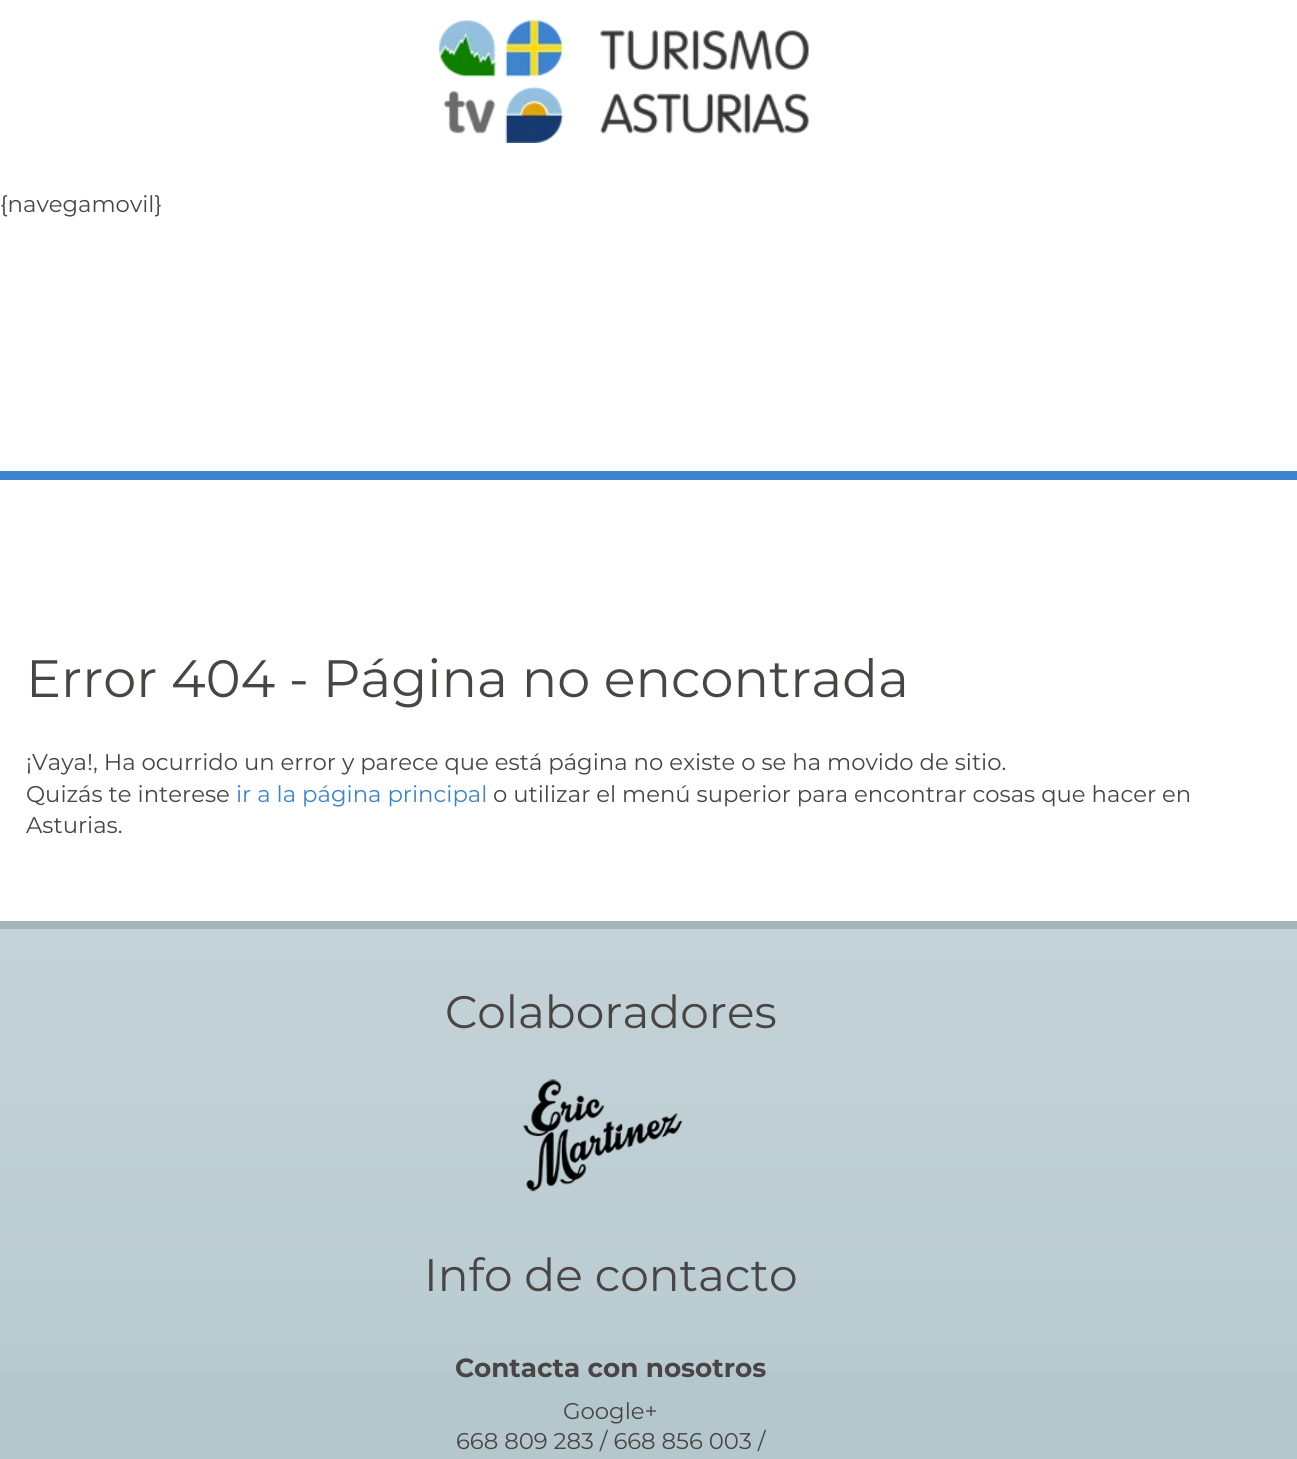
#include <cairo/cairo.h>
#include <math.h>
#include <stddef.h>

static cairo_t *cr;

static void rgb(unsigned color)
{
	cairo_set_source_rgb(cr, (color >> 16) / 255.0, (color >> 8 & 255) / 255.0, (color & 255) / 255.0);
}

static void image(const char *path, double x, double y, double w, double h)
{
	cairo_surface_t *image = cairo_image_surface_create_from_png(path);
	cairo_save(cr);
	cairo_set_source_surface(cr, image, x, y);
	cairo_rectangle(cr, x, y, w, h);
	cairo_fill(cr);
	cairo_restore(cr);
	cairo_surface_destroy(image);
}

int main(void) {
	cairo_surface_t *surface = cairo_image_surface_create(CAIRO_FORMAT_RGB24, 1297, 1459);
	cr = cairo_create(surface);
	cairo_font_options_t *options = cairo_font_options_create();
	cairo_font_options_set_hint_metrics(options, CAIRO_HINT_METRICS_OFF);
	cairo_font_options_set_hint_style(options, CAIRO_HINT_STYLE_NONE);
	cairo_set_font_options(cr, options);
	cairo_set_miter_limit(cr, 4);
	rgb(0xffffff);
	cairo_paint(cr);
	image("img/1.png", 439, 20, 370, 123);
	rgb(0x3e83ce);
	cairo_rectangle(cr, 0, 471, 1297, 9);
	cairo_fill(cr);
	rgb(0xb4c7cd);
	cairo_rectangle(cr, 0, 1370, 1297, 89);
	cairo_fill(cr);
	image("img/2.png", 0, 929, 1297, 441);
	rgb(0xa2b6bc);
	cairo_rectangle(cr, 0, 921, 1297, 8);
	cairo_fill(cr);
	image("img/3.png", 523, 1079, 160, 113);
	cairo_select_font_face(cr, "Montserrat", CAIRO_FONT_SLANT_NORMAL, CAIRO_FONT_WEIGHT_NORMAL);
	cairo_set_font_size(cr, 22.75);
	rgb(0x484544);
	cairo_move_to(cr, 0, 212);
	cairo_show_text(cr, "{navegamovil}");
	cairo_set_font_size(cr, 52.5);
	cairo_move_to(cr, 26, 697);
	cairo_show_text(cr, "Error 404 - Página no encontrada");
	cairo_set_font_size(cr, 22.75);
	cairo_move_to(cr, 26, 770);
	cairo_show_text(cr, "¡Vaya!, Ha ocurrido un error y parece que está página no existe o se ha movido de sitio.");
	cairo_move_to(cr, 26, 802);
	cairo_show_text(cr, "Quizás te interese");
	rgb(0x3e83ce);
	cairo_move_to(cr, 236, 802);
	cairo_show_text(cr, "ir a la página principal");
	rgb(0x484544);
	cairo_move_to(cr, 493, 802);
	cairo_show_text(cr, "o utilizar el menú superior para encontrar cosas que hacer en");
	cairo_move_to(cr, 26, 833);
	cairo_show_text(cr, "Asturias.");
	cairo_set_font_size(cr, 45.5);
	cairo_move_to(cr, 445, 1028);
	cairo_show_text(cr, "Colaboradores");
	cairo_move_to(cr, 424, 1291);
	cairo_show_text(cr, "Info de contacto");
	cairo_select_font_face(cr, "Montserrat", CAIRO_FONT_SLANT_NORMAL, CAIRO_FONT_WEIGHT_BOLD);
	cairo_set_font_size(cr, 26.25);
	cairo_move_to(cr, 455, 1377);
	cairo_show_text(cr, "Contacta con nosotros");
	cairo_select_font_face(cr, "Montserrat", CAIRO_FONT_SLANT_NORMAL, CAIRO_FONT_WEIGHT_NORMAL);
	cairo_set_font_size(cr, 22.75);
	cairo_move_to(cr, 563, 1419);
	cairo_show_text(cr, "Google+");
	cairo_move_to(cr, 456, 1449);
	cairo_show_text(cr, "668 809 283 / 668 856 003 /");
	cairo_surface_write_to_png(surface, "page.png");
	cairo_font_options_destroy(options);
	cairo_destroy(cr);
	cairo_surface_destroy(surface);
	return 0;
}
